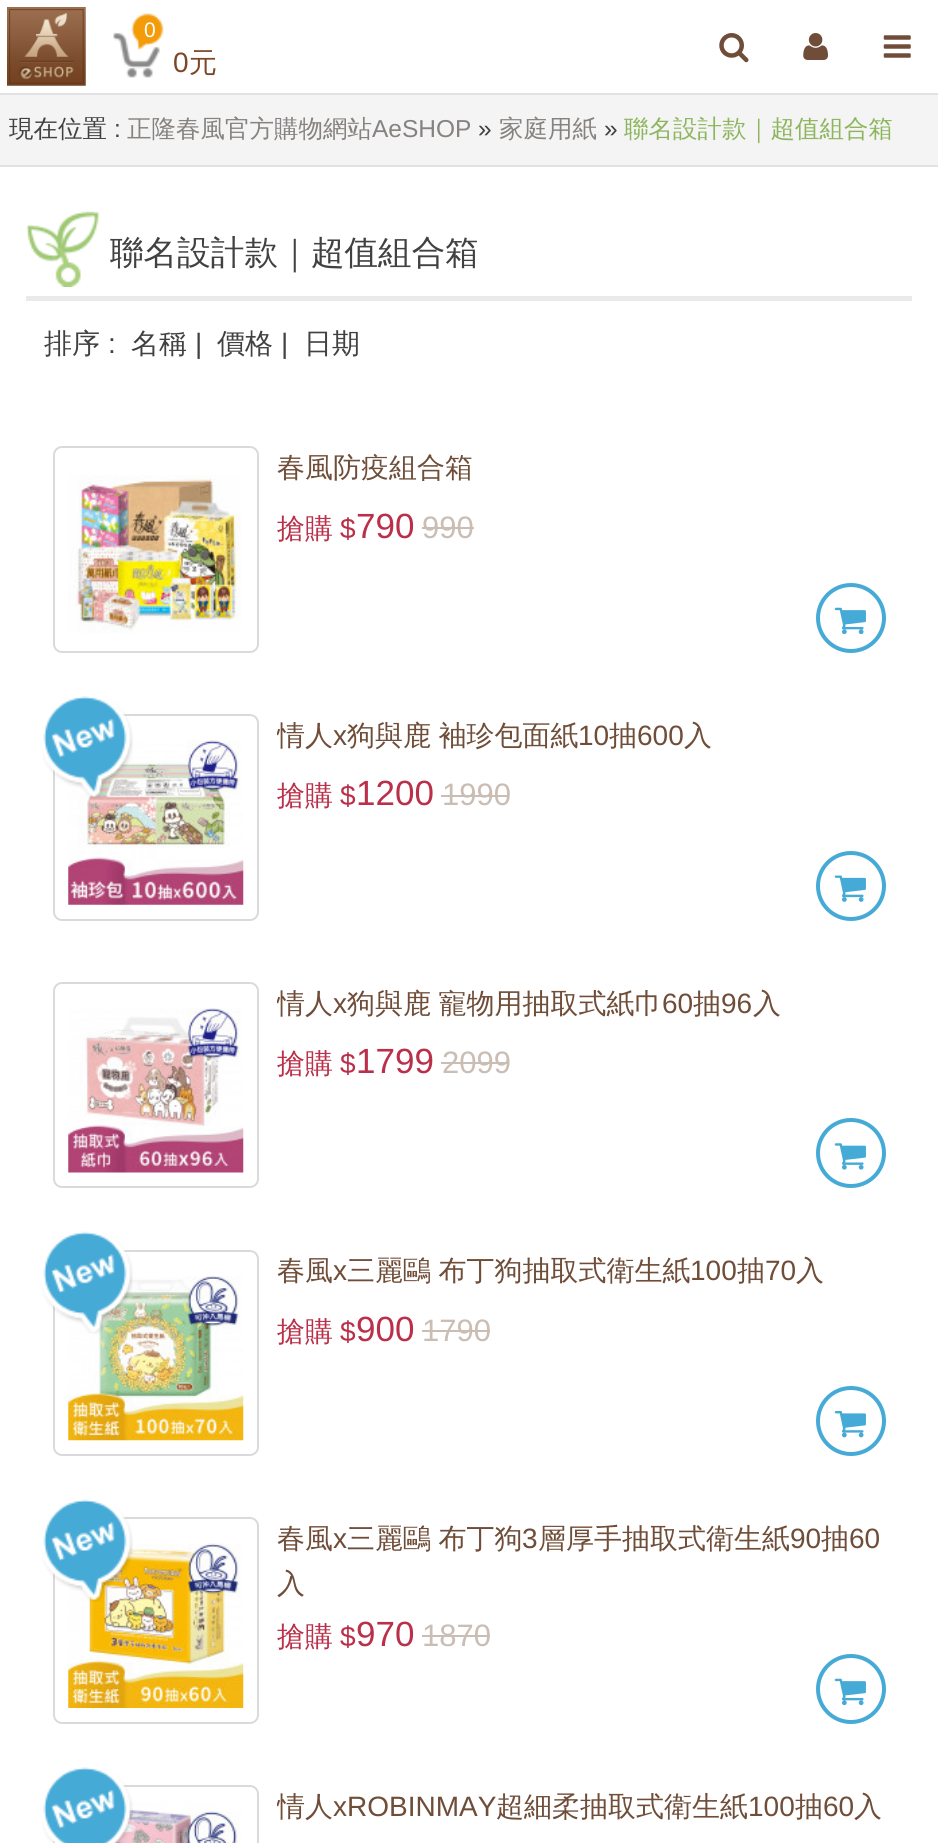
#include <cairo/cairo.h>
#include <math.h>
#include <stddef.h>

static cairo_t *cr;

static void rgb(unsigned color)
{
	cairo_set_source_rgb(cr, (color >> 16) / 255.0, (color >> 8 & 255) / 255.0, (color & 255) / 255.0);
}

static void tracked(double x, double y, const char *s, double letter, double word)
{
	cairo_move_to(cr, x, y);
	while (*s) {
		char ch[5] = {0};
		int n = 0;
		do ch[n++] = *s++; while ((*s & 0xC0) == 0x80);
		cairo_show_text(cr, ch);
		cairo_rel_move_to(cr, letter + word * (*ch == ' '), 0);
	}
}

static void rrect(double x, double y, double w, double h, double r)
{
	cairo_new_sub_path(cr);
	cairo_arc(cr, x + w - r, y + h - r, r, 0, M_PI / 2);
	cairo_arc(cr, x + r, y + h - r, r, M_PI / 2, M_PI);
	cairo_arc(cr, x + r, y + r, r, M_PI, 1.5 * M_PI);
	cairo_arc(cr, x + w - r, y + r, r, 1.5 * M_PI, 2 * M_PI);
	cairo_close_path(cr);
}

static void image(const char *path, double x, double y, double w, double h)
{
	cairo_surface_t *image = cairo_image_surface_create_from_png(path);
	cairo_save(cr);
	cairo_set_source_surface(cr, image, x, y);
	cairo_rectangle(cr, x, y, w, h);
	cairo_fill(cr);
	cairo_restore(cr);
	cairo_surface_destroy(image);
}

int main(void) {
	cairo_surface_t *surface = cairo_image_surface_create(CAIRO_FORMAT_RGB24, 938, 1843);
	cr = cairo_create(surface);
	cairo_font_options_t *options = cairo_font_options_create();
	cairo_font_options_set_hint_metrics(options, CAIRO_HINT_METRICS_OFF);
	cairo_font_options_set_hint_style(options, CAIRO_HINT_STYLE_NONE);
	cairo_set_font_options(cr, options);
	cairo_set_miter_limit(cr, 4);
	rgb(0xffffff);
	cairo_paint(cr);
	rgb(0xe2e2e2);
	cairo_rectangle(cr, 0, 93, 938, 2);
	cairo_fill(cr);
	image("img/1.png", 7, 7, 79, 79);
	image("img/2.png", 113, 13, 51, 65);
	image("img/3.png", 719, 33, 30, 30);
	image("img/4.png", 803, 33, 25, 27);
	image("img/5.png", 883, 35, 28, 23);
	rgb(0xf4f4f4);
	cairo_rectangle(cr, 0, 95, 938, 70);
	cairo_fill(cr);
	rgb(0xe2e2e2);
	cairo_rectangle(cr, 0, 165, 938, 2);
	cairo_fill(cr);
	image("img/6.png", 26, 211, 74, 76);
	rgb(0xeaeaea);
	cairo_rectangle(cr, 26, 296, 886, 5);
	cairo_fill(cr);
	rrect(54, 447, 204, 205, 8);
	rgb(0xdadada);
	cairo_stroke(cr);
	image("img/7.png", 68, 475, 173, 158);
	rgb(0xcabdb4);
	cairo_rectangle(cr, 422, 527, 52, 2);
	cairo_fill(cr);
	cairo_arc(cr, 851, 618, 33, 0, 2 * M_PI);
	rgb(0x46aad7);
	cairo_set_line_width(cr, 4);
	cairo_stroke(cr);
	image("img/8.png", 834, 607, 32, 28);
	rrect(54, 715, 204, 205, 8);
	rgb(0xdadada);
	cairo_set_line_width(cr, 2);
	cairo_stroke(cr);
	image("img/10.png", 68, 740, 176, 165);
	image("img/9.png", 42, 696, 91, 103);
	rgb(0xcabdb4);
	cairo_rectangle(cr, 441, 795, 68, 2);
	cairo_fill(cr);
	cairo_arc(cr, 851, 886, 33, 0, 2 * M_PI);
	rgb(0x46aad7);
	cairo_set_line_width(cr, 4);
	cairo_stroke(cr);
	image("img/11.png", 834, 875, 32, 27);
	rrect(54, 983, 204, 204, 8);
	rgb(0xdadada);
	cairo_set_line_width(cr, 2);
	cairo_stroke(cr);
	image("img/12.png", 68, 1008, 176, 165);
	rgb(0xcabdb4);
	cairo_rectangle(cr, 441, 1062, 68, 2);
	cairo_fill(cr);
	cairo_arc(cr, 851, 1153, 33, 0, 2 * M_PI);
	rgb(0x46aad7);
	cairo_set_line_width(cr, 4);
	cairo_stroke(cr);
	image("img/13.png", 834, 1143, 32, 27);
	rrect(54, 1251, 204, 204, 8);
	rgb(0xdadada);
	cairo_set_line_width(cr, 2);
	cairo_stroke(cr);
	image("img/15.png", 68, 1276, 176, 165);
	image("img/14.png", 41, 1231, 92, 103);
	rgb(0xcabdb4);
	cairo_rectangle(cr, 422, 1330, 68, 2);
	cairo_fill(cr);
	cairo_arc(cr, 851, 1421, 33, 0, 2 * M_PI);
	rgb(0x46aad7);
	cairo_set_line_width(cr, 4);
	cairo_stroke(cr);
	image("img/16.png", 834, 1411, 32, 27);
	rrect(54, 1518, 204, 205, 8);
	rgb(0xdadada);
	cairo_set_line_width(cr, 2);
	cairo_stroke(cr);
	image("img/18.png", 68, 1543, 176, 165);
	image("img/17.png", 42, 1499, 91, 103);
	rgb(0xcabdb4);
	cairo_rectangle(cr, 422, 1635, 68, 2);
	cairo_fill(cr);
	cairo_arc(cr, 851, 1689, 33, 0, 2 * M_PI);
	rgb(0x46aad7);
	cairo_set_line_width(cr, 4);
	cairo_stroke(cr);
	image("img/8.png", 834, 1678, 32, 28);
	rrect(54, 1786, 204, 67, 8);
	rgb(0xdadada);
	cairo_set_line_width(cr, 2);
	cairo_stroke(cr);
	image("img/20.png", 111, 1802, 130, 41);
	image("img/19.png", 42, 1767, 91, 76);
	cairo_select_font_face(cr, "Liberation Sans", CAIRO_FONT_SLANT_NORMAL, CAIRO_FONT_WEIGHT_NORMAL);
	cairo_set_font_size(cr, 21);
	rgb(0xffffff);
	cairo_move_to(cr, 144, 37);
	cairo_show_text(cr, "0");
	cairo_set_font_size(cr, 28);
	rgb(0x7d4727);
	cairo_move_to(cr, 173, 72);
	cairo_show_text(cr, "0");
	cairo_select_font_face(cr, "WenQuanYi Zen Hei Medium", CAIRO_FONT_SLANT_NORMAL, CAIRO_FONT_WEIGHT_NORMAL);
	cairo_move_to(cr, 189, 72);
	cairo_show_text(cr, "元");
	cairo_set_font_size(cr, 24.5);
	rgb(0x414141);
	cairo_move_to(cr, 9, 137);
	cairo_show_text(cr, "現在位置");
	cairo_select_font_face(cr, "Liberation Sans", CAIRO_FONT_SLANT_NORMAL, CAIRO_FONT_WEIGHT_NORMAL);
	cairo_move_to(cr, 114, 137);
	cairo_show_text(cr, ":");
	cairo_select_font_face(cr, "WenQuanYi Zen Hei Medium", CAIRO_FONT_SLANT_NORMAL, CAIRO_FONT_WEIGHT_NORMAL);
	rgb(0x868280);
	cairo_move_to(cr, 127, 137);
	cairo_show_text(cr, "正隆春風官方購物網站");
	cairo_select_font_face(cr, "Liberation Sans", CAIRO_FONT_SLANT_NORMAL, CAIRO_FONT_WEIGHT_NORMAL);
	cairo_move_to(cr, 372, 137);
	cairo_show_text(cr, "AeSHOP");
	rgb(0x414141);
	cairo_move_to(cr, 478, 137);
	cairo_show_text(cr, "»");
	cairo_select_font_face(cr, "WenQuanYi Zen Hei Medium", CAIRO_FONT_SLANT_NORMAL, CAIRO_FONT_WEIGHT_NORMAL);
	rgb(0x868280);
	cairo_move_to(cr, 499, 137);
	cairo_show_text(cr, "家庭用紙");
	cairo_select_font_face(cr, "Liberation Sans", CAIRO_FONT_SLANT_NORMAL, CAIRO_FONT_WEIGHT_NORMAL);
	rgb(0x414141);
	cairo_move_to(cr, 604, 137);
	cairo_show_text(cr, "»");
	cairo_select_font_face(cr, "WenQuanYi Zen Hei Medium", CAIRO_FONT_SLANT_NORMAL, CAIRO_FONT_WEIGHT_NORMAL);
	rgb(0x8db55d);
	cairo_move_to(cr, 624, 137);
	cairo_show_text(cr, "聯名設計款｜超值組合箱");
	cairo_set_font_size(cr, 33.6);
	rgb(0x414141);
	cairo_move_to(cr, 110, 264);
	cairo_show_text(cr, "聯名設計款｜超值組合箱");
	cairo_set_font_size(cr, 28);
	cairo_move_to(cr, 44, 353);
	cairo_show_text(cr, "排序");
	cairo_select_font_face(cr, "Liberation Sans", CAIRO_FONT_SLANT_NORMAL, CAIRO_FONT_WEIGHT_NORMAL);
	cairo_move_to(cr, 108, 353);
	cairo_show_text(cr, ":");
	cairo_select_font_face(cr, "WenQuanYi Zen Hei Medium", CAIRO_FONT_SLANT_NORMAL, CAIRO_FONT_WEIGHT_NORMAL);
	cairo_move_to(cr, 131, 353);
	cairo_show_text(cr, "名稱");
	cairo_select_font_face(cr, "Liberation Sans", CAIRO_FONT_SLANT_NORMAL, CAIRO_FONT_WEIGHT_NORMAL);
	cairo_move_to(cr, 195, 353);
	cairo_show_text(cr, "|");
	cairo_select_font_face(cr, "WenQuanYi Zen Hei Medium", CAIRO_FONT_SLANT_NORMAL, CAIRO_FONT_WEIGHT_NORMAL);
	cairo_move_to(cr, 217, 353);
	cairo_show_text(cr, "價格");
	cairo_select_font_face(cr, "Liberation Sans", CAIRO_FONT_SLANT_NORMAL, CAIRO_FONT_WEIGHT_NORMAL);
	cairo_move_to(cr, 281, 353);
	cairo_show_text(cr, "|");
	cairo_select_font_face(cr, "WenQuanYi Zen Hei Medium", CAIRO_FONT_SLANT_NORMAL, CAIRO_FONT_WEIGHT_NORMAL);
	cairo_move_to(cr, 304, 353);
	cairo_show_text(cr, "日期");
	rgb(0x6f4d38);
	cairo_move_to(cr, 277, 477);
	cairo_show_text(cr, "春風防疫組合箱");
	rgb(0xba2f49);
	cairo_move_to(cr, 277, 538);
	cairo_show_text(cr, "搶購");
	cairo_select_font_face(cr, "Liberation Sans", CAIRO_FONT_SLANT_NORMAL, CAIRO_FONT_WEIGHT_NORMAL);
	cairo_move_to(cr, 340, 538);
	cairo_show_text(cr, "$");
	cairo_set_font_size(cr, 35);
	cairo_move_to(cr, 356, 538);
	cairo_show_text(cr, "790");
	cairo_set_font_size(cr, 31);
	rgb(0xcabdb4);
	cairo_move_to(cr, 422, 538);
	cairo_show_text(cr, "990");
	cairo_save(cr);
	cairo_rectangle(cr, 277, 714, 609, 44);
	cairo_clip(cr);
	cairo_select_font_face(cr, "WenQuanYi Zen Hei Medium", CAIRO_FONT_SLANT_NORMAL, CAIRO_FONT_WEIGHT_NORMAL);
	cairo_set_font_size(cr, 28);
	rgb(0x6f4d38);
	cairo_move_to(cr, 277, 745);
	cairo_show_text(cr, "情人");
	cairo_restore(cr);
	cairo_set_font_size(cr, 28);
	rgb(0x6f4d38);
	cairo_move_to(cr, 333, 745);
	cairo_show_text(cr, "x");
	cairo_select_font_face(cr, "WenQuanYi Zen Hei Medium", CAIRO_FONT_SLANT_NORMAL, CAIRO_FONT_WEIGHT_NORMAL);
	tracked(347, 745, "狗與鹿 袖珍包面紙", 0, -1);
	cairo_select_font_face(cr, "Liberation Sans", CAIRO_FONT_SLANT_NORMAL, CAIRO_FONT_WEIGHT_NORMAL);
	cairo_move_to(cr, 578, 745);
	cairo_show_text(cr, "10");
	cairo_select_font_face(cr, "WenQuanYi Zen Hei Medium", CAIRO_FONT_SLANT_NORMAL, CAIRO_FONT_WEIGHT_NORMAL);
	cairo_move_to(cr, 609, 745);
	cairo_show_text(cr, "抽");
	cairo_select_font_face(cr, "Liberation Sans", CAIRO_FONT_SLANT_NORMAL, CAIRO_FONT_WEIGHT_NORMAL);
	cairo_move_to(cr, 637, 745);
	cairo_show_text(cr, "600");
	cairo_select_font_face(cr, "WenQuanYi Zen Hei Medium", CAIRO_FONT_SLANT_NORMAL, CAIRO_FONT_WEIGHT_NORMAL);
	cairo_move_to(cr, 684, 745);
	cairo_show_text(cr, "入");
	rgb(0xba2f49);
	cairo_move_to(cr, 277, 805);
	cairo_show_text(cr, "搶購");
	cairo_select_font_face(cr, "Liberation Sans", CAIRO_FONT_SLANT_NORMAL, CAIRO_FONT_WEIGHT_NORMAL);
	cairo_move_to(cr, 340, 805);
	cairo_show_text(cr, "$");
	cairo_set_font_size(cr, 35);
	cairo_move_to(cr, 356, 805);
	cairo_show_text(cr, "1200");
	cairo_set_font_size(cr, 31);
	rgb(0xcabdb4);
	cairo_move_to(cr, 442, 805);
	cairo_show_text(cr, "1990");
	cairo_save(cr);
	cairo_rectangle(cr, 277, 982, 609, 44);
	cairo_clip(cr);
	cairo_select_font_face(cr, "WenQuanYi Zen Hei Medium", CAIRO_FONT_SLANT_NORMAL, CAIRO_FONT_WEIGHT_NORMAL);
	cairo_set_font_size(cr, 28);
	rgb(0x6f4d38);
	cairo_move_to(cr, 277, 1013);
	cairo_show_text(cr, "情人");
	cairo_restore(cr);
	cairo_set_font_size(cr, 28);
	rgb(0x6f4d38);
	cairo_move_to(cr, 333, 1013);
	cairo_show_text(cr, "x");
	cairo_select_font_face(cr, "WenQuanYi Zen Hei Medium", CAIRO_FONT_SLANT_NORMAL, CAIRO_FONT_WEIGHT_NORMAL);
	tracked(347, 1013, "狗與鹿 寵物用抽取式紙巾", 0, -1);
	cairo_select_font_face(cr, "Liberation Sans", CAIRO_FONT_SLANT_NORMAL, CAIRO_FONT_WEIGHT_NORMAL);
	cairo_move_to(cr, 662, 1013);
	cairo_show_text(cr, "60");
	cairo_select_font_face(cr, "WenQuanYi Zen Hei Medium", CAIRO_FONT_SLANT_NORMAL, CAIRO_FONT_WEIGHT_NORMAL);
	cairo_move_to(cr, 693, 1013);
	cairo_show_text(cr, "抽");
	cairo_select_font_face(cr, "Liberation Sans", CAIRO_FONT_SLANT_NORMAL, CAIRO_FONT_WEIGHT_NORMAL);
	cairo_move_to(cr, 721, 1013);
	cairo_show_text(cr, "96");
	cairo_select_font_face(cr, "WenQuanYi Zen Hei Medium", CAIRO_FONT_SLANT_NORMAL, CAIRO_FONT_WEIGHT_NORMAL);
	cairo_move_to(cr, 753, 1013);
	cairo_show_text(cr, "入");
	rgb(0xba2f49);
	cairo_move_to(cr, 277, 1073);
	cairo_show_text(cr, "搶購");
	cairo_select_font_face(cr, "Liberation Sans", CAIRO_FONT_SLANT_NORMAL, CAIRO_FONT_WEIGHT_NORMAL);
	cairo_move_to(cr, 340, 1073);
	cairo_show_text(cr, "$");
	cairo_set_font_size(cr, 35);
	cairo_move_to(cr, 356, 1073);
	cairo_show_text(cr, "1799");
	cairo_set_font_size(cr, 31);
	rgb(0xcabdb4);
	cairo_move_to(cr, 442, 1073);
	cairo_show_text(cr, "2099");
	cairo_select_font_face(cr, "WenQuanYi Zen Hei Medium", CAIRO_FONT_SLANT_NORMAL, CAIRO_FONT_WEIGHT_NORMAL);
	cairo_set_font_size(cr, 28);
	rgb(0x6f4d38);
	cairo_move_to(cr, 277, 1280);
	cairo_show_text(cr, "春風");
	cairo_select_font_face(cr, "Liberation Sans", CAIRO_FONT_SLANT_NORMAL, CAIRO_FONT_WEIGHT_NORMAL);
	cairo_move_to(cr, 333, 1280);
	cairo_show_text(cr, "x");
	cairo_select_font_face(cr, "WenQuanYi Zen Hei Medium", CAIRO_FONT_SLANT_NORMAL, CAIRO_FONT_WEIGHT_NORMAL);
	tracked(347, 1280, "三麗鷗 布丁狗抽取式衛生紙", 0, -1);
	cairo_select_font_face(cr, "Liberation Sans", CAIRO_FONT_SLANT_NORMAL, CAIRO_FONT_WEIGHT_NORMAL);
	cairo_move_to(cr, 690, 1280);
	cairo_show_text(cr, "100");
	cairo_select_font_face(cr, "WenQuanYi Zen Hei Medium", CAIRO_FONT_SLANT_NORMAL, CAIRO_FONT_WEIGHT_NORMAL);
	cairo_move_to(cr, 737, 1280);
	cairo_show_text(cr, "抽");
	cairo_select_font_face(cr, "Liberation Sans", CAIRO_FONT_SLANT_NORMAL, CAIRO_FONT_WEIGHT_NORMAL);
	cairo_move_to(cr, 765, 1280);
	cairo_show_text(cr, "70");
	cairo_select_font_face(cr, "WenQuanYi Zen Hei Medium", CAIRO_FONT_SLANT_NORMAL, CAIRO_FONT_WEIGHT_NORMAL);
	cairo_move_to(cr, 796, 1280);
	cairo_show_text(cr, "入");
	rgb(0xba2f49);
	cairo_move_to(cr, 277, 1341);
	cairo_show_text(cr, "搶購");
	cairo_select_font_face(cr, "Liberation Sans", CAIRO_FONT_SLANT_NORMAL, CAIRO_FONT_WEIGHT_NORMAL);
	cairo_move_to(cr, 340, 1341);
	cairo_show_text(cr, "$");
	cairo_set_font_size(cr, 35);
	cairo_move_to(cr, 356, 1341);
	cairo_show_text(cr, "900");
	cairo_set_font_size(cr, 31);
	rgb(0xcabdb4);
	cairo_move_to(cr, 422, 1341);
	cairo_show_text(cr, "1790");
	cairo_select_font_face(cr, "WenQuanYi Zen Hei Medium", CAIRO_FONT_SLANT_NORMAL, CAIRO_FONT_WEIGHT_NORMAL);
	cairo_set_font_size(cr, 28);
	rgb(0x6f4d38);
	cairo_move_to(cr, 277, 1548);
	cairo_show_text(cr, "春風");
	cairo_select_font_face(cr, "Liberation Sans", CAIRO_FONT_SLANT_NORMAL, CAIRO_FONT_WEIGHT_NORMAL);
	cairo_move_to(cr, 333, 1548);
	cairo_show_text(cr, "x");
	cairo_select_font_face(cr, "WenQuanYi Zen Hei Medium", CAIRO_FONT_SLANT_NORMAL, CAIRO_FONT_WEIGHT_NORMAL);
	tracked(347, 1548, "三麗鷗 布丁狗", 0, -1);
	cairo_select_font_face(cr, "Liberation Sans", CAIRO_FONT_SLANT_NORMAL, CAIRO_FONT_WEIGHT_NORMAL);
	cairo_move_to(cr, 522, 1548);
	cairo_show_text(cr, "3");
	cairo_select_font_face(cr, "WenQuanYi Zen Hei Medium", CAIRO_FONT_SLANT_NORMAL, CAIRO_FONT_WEIGHT_NORMAL);
	cairo_move_to(cr, 538, 1548);
	cairo_show_text(cr, "層厚手抽取式衛生紙");
	cairo_select_font_face(cr, "Liberation Sans", CAIRO_FONT_SLANT_NORMAL, CAIRO_FONT_WEIGHT_NORMAL);
	cairo_move_to(cr, 790, 1548);
	cairo_show_text(cr, "90");
	cairo_select_font_face(cr, "WenQuanYi Zen Hei Medium", CAIRO_FONT_SLANT_NORMAL, CAIRO_FONT_WEIGHT_NORMAL);
	cairo_move_to(cr, 821, 1548);
	cairo_show_text(cr, "抽");
	cairo_select_font_face(cr, "Liberation Sans", CAIRO_FONT_SLANT_NORMAL, CAIRO_FONT_WEIGHT_NORMAL);
	cairo_move_to(cr, 849, 1548);
	cairo_show_text(cr, "60");
	cairo_select_font_face(cr, "WenQuanYi Zen Hei Medium", CAIRO_FONT_SLANT_NORMAL, CAIRO_FONT_WEIGHT_NORMAL);
	cairo_move_to(cr, 277, 1593);
	cairo_show_text(cr, "入");
	rgb(0xba2f49);
	cairo_move_to(cr, 277, 1646);
	cairo_show_text(cr, "搶購");
	cairo_select_font_face(cr, "Liberation Sans", CAIRO_FONT_SLANT_NORMAL, CAIRO_FONT_WEIGHT_NORMAL);
	cairo_move_to(cr, 340, 1646);
	cairo_show_text(cr, "$");
	cairo_set_font_size(cr, 35);
	cairo_move_to(cr, 356, 1646);
	cairo_show_text(cr, "970");
	cairo_set_font_size(cr, 31);
	rgb(0xcabdb4);
	cairo_move_to(cr, 422, 1646);
	cairo_show_text(cr, "1870");
	cairo_save(cr);
	cairo_rectangle(cr, 277, 1785, 609, 44);
	cairo_clip(cr);
	cairo_select_font_face(cr, "WenQuanYi Zen Hei Medium", CAIRO_FONT_SLANT_NORMAL, CAIRO_FONT_WEIGHT_NORMAL);
	cairo_set_font_size(cr, 28);
	rgb(0x6f4d38);
	cairo_move_to(cr, 277, 1816);
	cairo_show_text(cr, "情人");
	cairo_restore(cr);
	cairo_set_font_size(cr, 28);
	rgb(0x6f4d38);
	cairo_move_to(cr, 333, 1816);
	cairo_show_text(cr, "xROBINMAY");
	cairo_select_font_face(cr, "WenQuanYi Zen Hei Medium", CAIRO_FONT_SLANT_NORMAL, CAIRO_FONT_WEIGHT_NORMAL);
	cairo_move_to(cr, 496, 1816);
	cairo_show_text(cr, "超細柔抽取式衛生紙");
	cairo_select_font_face(cr, "Liberation Sans", CAIRO_FONT_SLANT_NORMAL, CAIRO_FONT_WEIGHT_NORMAL);
	cairo_move_to(cr, 748, 1816);
	cairo_show_text(cr, "100");
	cairo_select_font_face(cr, "WenQuanYi Zen Hei Medium", CAIRO_FONT_SLANT_NORMAL, CAIRO_FONT_WEIGHT_NORMAL);
	cairo_move_to(cr, 795, 1816);
	cairo_show_text(cr, "抽");
	cairo_select_font_face(cr, "Liberation Sans", CAIRO_FONT_SLANT_NORMAL, CAIRO_FONT_WEIGHT_NORMAL);
	cairo_move_to(cr, 823, 1816);
	cairo_show_text(cr, "60");
	cairo_select_font_face(cr, "WenQuanYi Zen Hei Medium", CAIRO_FONT_SLANT_NORMAL, CAIRO_FONT_WEIGHT_NORMAL);
	cairo_move_to(cr, 854, 1816);
	cairo_show_text(cr, "入");
	cairo_surface_write_to_png(surface, "page.png");
	cairo_font_options_destroy(options);
	cairo_destroy(cr);
	cairo_surface_destroy(surface);
	return 0;
}
